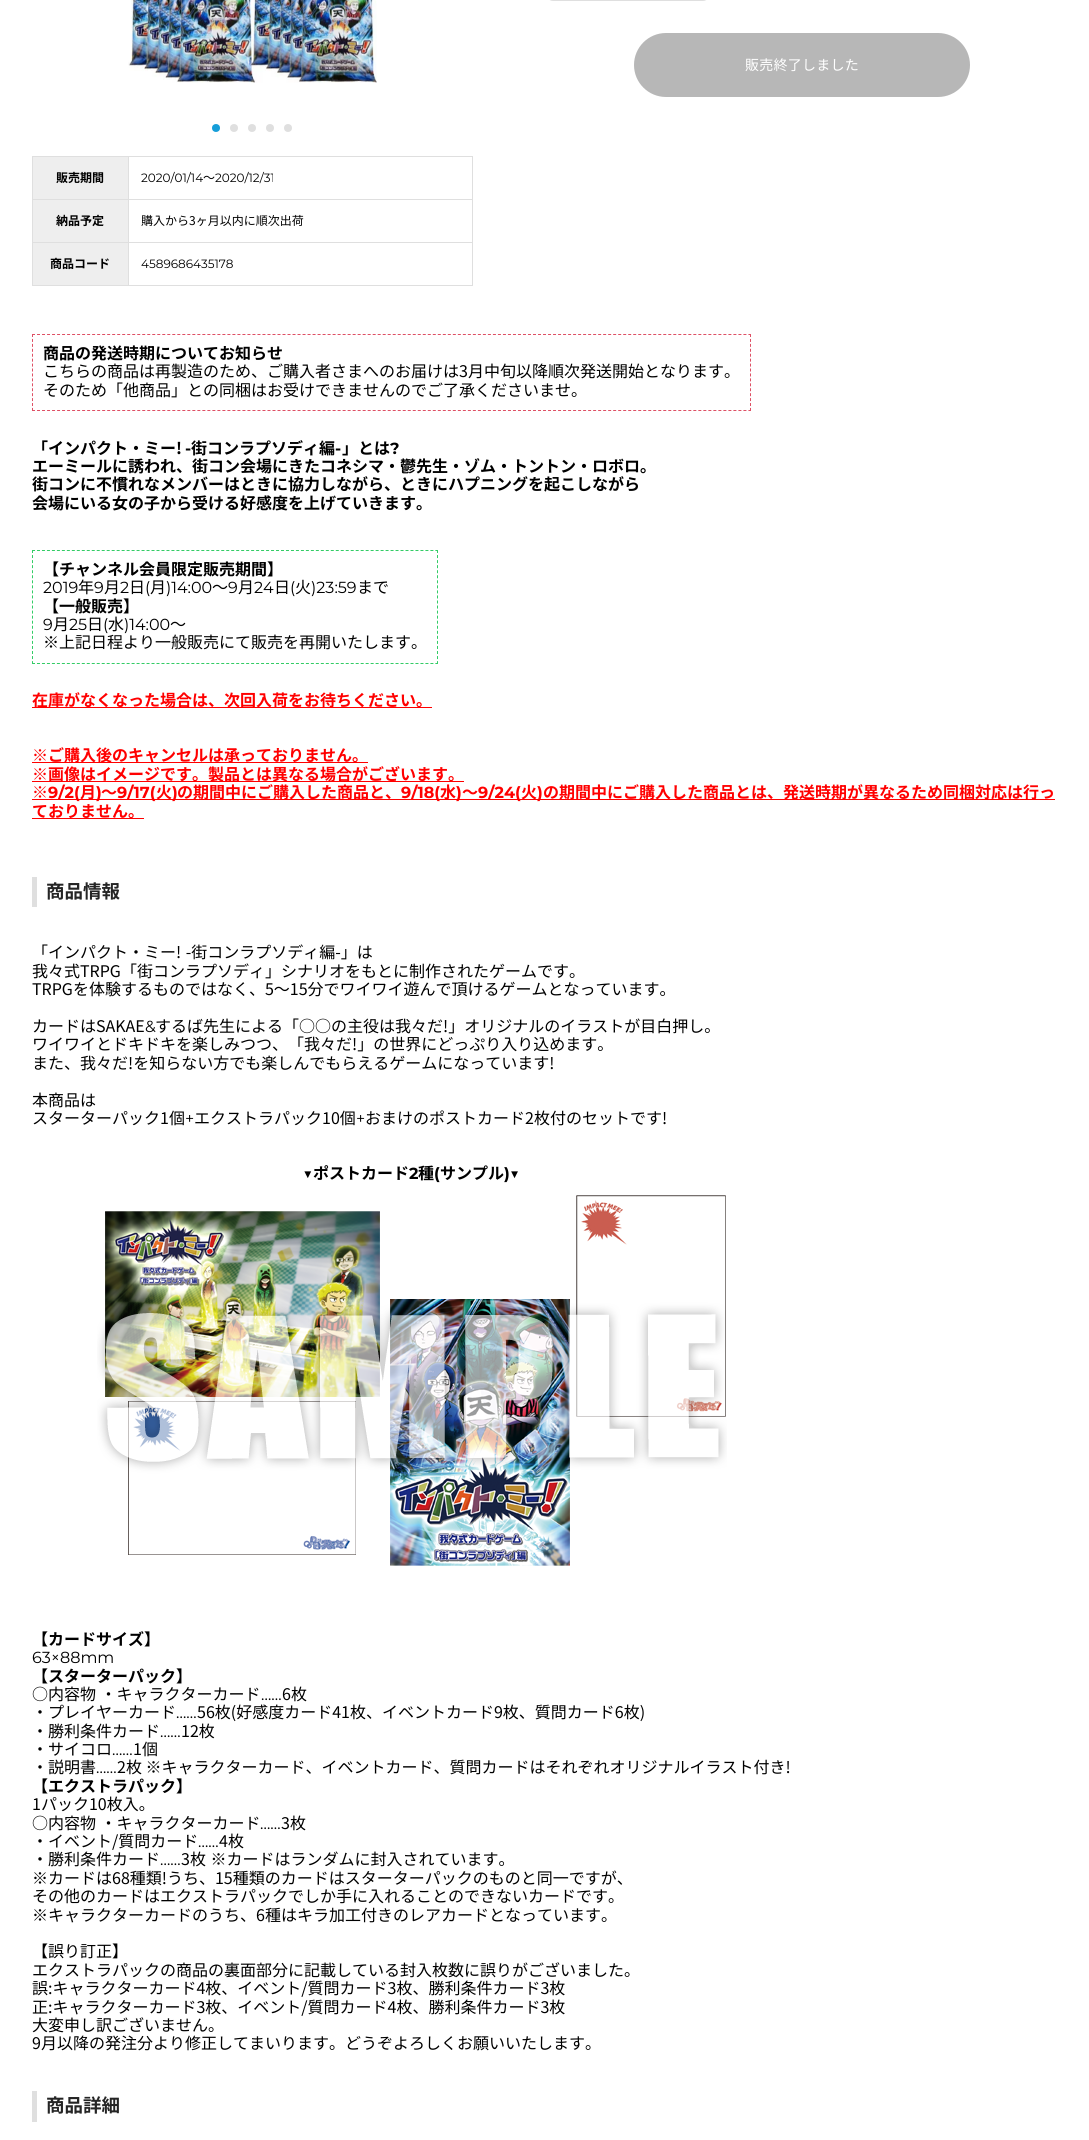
#include <cairo/cairo.h>
#include <math.h>
#include <stddef.h>

typedef struct { double x, y; const char *s; } line_t;
typedef struct { double x, y, w, h; unsigned color; } box_t;
static cairo_t *cr;

static void rgb(unsigned color)
{
	cairo_set_source_rgb(cr, (color >> 16) / 255.0, (color >> 8 & 255) / 255.0, (color & 255) / 255.0);
}

static void tracked(double x, double y, const char *s, double letter, double word)
{
	cairo_move_to(cr, x, y);
	while (*s) {
		char ch[5] = {0};
		int n = 0;
		do ch[n++] = *s++; while ((*s & 0xC0) == 0x80);
		cairo_show_text(cr, ch);
		cairo_rel_move_to(cr, letter + word * (*ch == ' '), 0);
	}
}

static void rrect(double x, double y, double w, double h, double r)
{
	cairo_new_sub_path(cr);
	cairo_arc(cr, x + w - r, y + h - r, r, 0, M_PI / 2);
	cairo_arc(cr, x + r, y + h - r, r, M_PI / 2, M_PI);
	cairo_arc(cr, x + r, y + r, r, M_PI, 1.5 * M_PI);
	cairo_arc(cr, x + w - r, y + r, r, 1.5 * M_PI, 2 * M_PI);
	cairo_close_path(cr);
}

static void image(const char *path, double x, double y, double w, double h)
{
	cairo_surface_t *image = cairo_image_surface_create_from_png(path);
	cairo_save(cr);
	cairo_set_source_surface(cr, image, x, y);
	cairo_rectangle(cr, x, y, w, h);
	cairo_fill(cr);
	cairo_restore(cr);
	cairo_surface_destroy(image);
}

int main(void) {
	cairo_surface_t *surface = cairo_image_surface_create(CAIRO_FORMAT_RGB24, 1089, 2140);
	cr = cairo_create(surface);
	cairo_font_options_t *options = cairo_font_options_create();
	cairo_font_options_set_hint_metrics(options, CAIRO_HINT_METRICS_OFF);
	cairo_font_options_set_hint_style(options, CAIRO_HINT_STYLE_NONE);
	cairo_set_font_options(cr, options);
	cairo_set_miter_limit(cr, 4);
	rgb(0xffffff);
	cairo_paint(cr);
	image("img/1.png", 128, 0, 249, 83);
	rgb(0x169ed9);
	cairo_arc(cr, 216, 128, 4, 0, 2 * M_PI);
	cairo_fill(cr);
	rgb(0xdfdfdf);
	cairo_arc(cr, 234, 128, 4, 0, 2 * M_PI);
	cairo_fill(cr);
	cairo_arc(cr, 252, 128, 4, 0, 2 * M_PI);
	cairo_fill(cr);
	cairo_arc(cr, 270, 128, 4, 0, 2 * M_PI);
	cairo_fill(cr);
	cairo_arc(cr, 288, 128, 4, 0, 2 * M_PI);
	cairo_fill(cr);
	rrect(547.5, -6.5, 161, 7, 5.5);
	cairo_set_line_width(cr, 1);
	cairo_stroke(cr);
	rgb(0xb7b7b7);
	rrect(634, 33, 336, 64, 32);
	cairo_fill(cr);
	{
		static const box_t items[] = {
			{33, 157, 95, 42, 0xeeeeee},
			{128, 156, 345, 1, 0xdfdfdf},
			{128, 199, 345, 1, 0xdfdfdf},
			{128, 242, 345, 1, 0xdfdfdf},
			{472, 242, 1, 44, 0xdfdfdf},
			{128, 285, 345, 1, 0xdfdfdf},
			{128, 242, 1, 44, 0xdfdfdf},
			{32, 242, 97, 1, 0xdfdfdf},
			{128, 199, 1, 44, 0xdfdfdf},
			{32, 199, 97, 1, 0xdfdfdf},
			{128, 156, 1, 44, 0xdfdfdf},
			{32, 156, 97, 1, 0xdfdfdf},
			{32, 285, 97, 1, 0xdfdfdf},
			{32, 242, 1, 44, 0xdfdfdf},
			{32, 199, 1, 44, 0xdfdfdf},
			{32, 156, 1, 44, 0xdfdfdf},
			{472, 199, 1, 44, 0xdfdfdf},
			{472, 156, 1, 44, 0xdfdfdf},
			{33, 200, 95, 42, 0xeeeeee},
			{33, 243, 95, 42, 0xeeeeee},
		};
		for (size_t i = 0; i < sizeof items / sizeof *items; i++) {
			rgb(items[i].color);
			cairo_rectangle(cr, items[i].x, items[i].y, items[i].w, items[i].h);
			cairo_fill(cr);
		}
	}
	cairo_new_path(cr);
	cairo_move_to(cr, 32, 334.5);
	cairo_line_to(cr, 751, 334.5);
	rgb(0xde5065);
	cairo_set_dash(cr, (double[]){3, 2.01}, 2, 0);
	cairo_stroke(cr);
	cairo_new_path(cr);
	cairo_move_to(cr, 750.5, 334);
	cairo_line_to(cr, 750.5, 411);
	cairo_set_dash(cr, (double[]){3, 1.93}, 2, 0);
	cairo_stroke(cr);
	cairo_new_path(cr);
	cairo_move_to(cr, 32, 410.5);
	cairo_line_to(cr, 751, 410.5);
	cairo_set_dash(cr, (double[]){3, 2.01}, 2, 0);
	cairo_stroke(cr);
	cairo_new_path(cr);
	cairo_move_to(cr, 32.5, 334);
	cairo_line_to(cr, 32.5, 411);
	cairo_set_dash(cr, (double[]){3, 1.93}, 2, 0);
	cairo_stroke(cr);
	cairo_new_path(cr);
	cairo_move_to(cr, 32, 550.5);
	cairo_line_to(cr, 438, 550.5);
	rgb(0x33cc66);
	cairo_set_dash(cr, (double[]){3, 1.98}, 2, 0);
	cairo_stroke(cr);
	cairo_new_path(cr);
	cairo_move_to(cr, 437.5, 550);
	cairo_line_to(cr, 437.5, 664);
	cairo_set_dash(cr, (double[]){3, 2.05}, 2, 0);
	cairo_stroke(cr);
	cairo_new_path(cr);
	cairo_move_to(cr, 32, 663.5);
	cairo_line_to(cr, 438, 663.5);
	cairo_set_dash(cr, (double[]){3, 1.98}, 2, 0);
	cairo_stroke(cr);
	cairo_new_path(cr);
	cairo_move_to(cr, 32.5, 550);
	cairo_line_to(cr, 32.5, 664);
	cairo_set_dash(cr, (double[]){3, 2.05}, 2, 0);
	cairo_stroke(cr);
	{
		static const box_t items[] = {
			{32, 707, 400, 1, 0xff0000},
			{32, 762, 336, 1, 0xff0000},
			{32, 781, 432, 1, 0xff0000},
			{32, 799, 1023, 1, 0xff0000},
			{32, 818, 112, 1, 0xff0000},
			{32, 877, 5, 30, 0xdfdfdf},
		};
		for (size_t i = 0; i < sizeof items / sizeof *items; i++) {
			rgb(items[i].color);
			cairo_rectangle(cr, items[i].x, items[i].y, items[i].w, items[i].h);
			cairo_fill(cr);
		}
	}
	image("img/2.png", 97, 1195, 630, 371);
	cairo_rectangle(cr, 32, 2091, 5, 31);
	cairo_fill(cr);
	cairo_select_font_face(cr, "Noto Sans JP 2 Thin", CAIRO_FONT_SLANT_NORMAL, CAIRO_FONT_WEIGHT_NORMAL);
	cairo_set_font_size(cr, 14);
	rgb(0xffffff);
	tracked(745, 70, "販売終了しました", 0.25, 0);
	cairo_select_font_face(cr, "Noto Sans JP Thin", CAIRO_FONT_SLANT_NORMAL, CAIRO_FONT_WEIGHT_NORMAL);
	cairo_set_font_size(cr, 12);
	rgb(0x000000);
	cairo_move_to(cr, 56, 182);
	cairo_show_text(cr, "販売期間");
	cairo_select_font_face(cr, "Montserrat", CAIRO_FONT_SLANT_NORMAL, CAIRO_FONT_WEIGHT_NORMAL);
	cairo_move_to(cr, 141, 182);
	cairo_show_text(cr, "2020/01/14");
	cairo_select_font_face(cr, "Noto Sans JP 2 Thin", CAIRO_FONT_SLANT_NORMAL, CAIRO_FONT_WEIGHT_NORMAL);
	cairo_move_to(cr, 203, 182);
	cairo_show_text(cr, "～");
	cairo_select_font_face(cr, "Montserrat", CAIRO_FONT_SLANT_NORMAL, CAIRO_FONT_WEIGHT_NORMAL);
	cairo_move_to(cr, 215, 182);
	cairo_show_text(cr, "2020/12/31");
	cairo_select_font_face(cr, "Noto Sans JP Thin", CAIRO_FONT_SLANT_NORMAL, CAIRO_FONT_WEIGHT_NORMAL);
	cairo_move_to(cr, 56, 225);
	cairo_show_text(cr, "納品予定");
	cairo_select_font_face(cr, "Noto Sans JP 2 Thin", CAIRO_FONT_SLANT_NORMAL, CAIRO_FONT_WEIGHT_NORMAL);
	cairo_move_to(cr, 141, 225);
	cairo_show_text(cr, "購入から3ヶ月以内に順次出荷");
	cairo_select_font_face(cr, "Noto Sans JP Thin", CAIRO_FONT_SLANT_NORMAL, CAIRO_FONT_WEIGHT_NORMAL);
	cairo_move_to(cr, 50, 268);
	cairo_show_text(cr, "商品コード");
	cairo_select_font_face(cr, "Montserrat", CAIRO_FONT_SLANT_NORMAL, CAIRO_FONT_WEIGHT_NORMAL);
	cairo_move_to(cr, 141, 268);
	cairo_show_text(cr, "4589686435178");
	cairo_select_font_face(cr, "Noto Sans JP Thin", CAIRO_FONT_SLANT_NORMAL, CAIRO_FONT_WEIGHT_NORMAL);
	cairo_set_font_size(cr, 16);
	cairo_move_to(cr, 43, 359);
	cairo_show_text(cr, "商品の発送時期についてお知らせ");
	cairo_select_font_face(cr, "Noto Sans JP 2 Thin", CAIRO_FONT_SLANT_NORMAL, CAIRO_FONT_WEIGHT_NORMAL);
	cairo_move_to(cr, 43, 377);
	cairo_show_text(cr, "こちらの商品は再製造のため、ご購入者さまへのお届けは3月中旬以降順次発送開始となります。");
	cairo_move_to(cr, 43, 396);
	cairo_show_text(cr, "そのため「他商品」との同梱はお受けできませんのでご了承くださいませ。");
	cairo_select_font_face(cr, "Noto Sans JP Thin", CAIRO_FONT_SLANT_NORMAL, CAIRO_FONT_WEIGHT_NORMAL);
	cairo_move_to(cr, 32, 454);
	cairo_show_text(cr, "「インパクト・ミー!");
	cairo_select_font_face(cr, "Montserrat", CAIRO_FONT_SLANT_NORMAL, CAIRO_FONT_WEIGHT_BOLD);
	cairo_move_to(cr, 185, 454);
	cairo_show_text(cr, "-");
	cairo_select_font_face(cr, "Noto Sans JP Thin", CAIRO_FONT_SLANT_NORMAL, CAIRO_FONT_WEIGHT_NORMAL);
	cairo_move_to(cr, 191, 454);
	cairo_show_text(cr, "街コンラプソディ編");
	cairo_select_font_face(cr, "Montserrat", CAIRO_FONT_SLANT_NORMAL, CAIRO_FONT_WEIGHT_BOLD);
	cairo_move_to(cr, 335, 454);
	cairo_show_text(cr, "-");
	cairo_select_font_face(cr, "Noto Sans JP Thin", CAIRO_FONT_SLANT_NORMAL, CAIRO_FONT_WEIGHT_NORMAL);
	cairo_move_to(cr, 342, 454);
	cairo_show_text(cr, "」とは");
	cairo_select_font_face(cr, "Montserrat", CAIRO_FONT_SLANT_NORMAL, CAIRO_FONT_WEIGHT_BOLD);
	cairo_move_to(cr, 390, 454);
	cairo_show_text(cr, "?");
	cairo_select_font_face(cr, "Noto Sans JP Thin", CAIRO_FONT_SLANT_NORMAL, CAIRO_FONT_WEIGHT_NORMAL);
	{
		static const line_t items[] = {
			{32, 472, "エーミールに誘われ、街コン会場にきたコネシマ・鬱先生・ゾム・トントン・ロボロ。"},
			{32, 490, "街コンに不慣れなメンバーはときに協力しながら、ときにハプニングを起こしながら"},
			{32, 509, "会場にいる女の子から受ける好感度を上げていきます。"},
			{43, 575, "【チャンネル会員限定販売期間】"},
		};
		for (size_t i = 0; i < sizeof items / sizeof *items; i++) {
			cairo_move_to(cr, items[i].x, items[i].y);
			cairo_show_text(cr, items[i].s);
		}
	}
	cairo_select_font_face(cr, "Montserrat", CAIRO_FONT_SLANT_NORMAL, CAIRO_FONT_WEIGHT_NORMAL);
	cairo_move_to(cr, 43, 593);
	cairo_show_text(cr, "2019");
	cairo_select_font_face(cr, "Noto Sans JP 2 Thin", CAIRO_FONT_SLANT_NORMAL, CAIRO_FONT_WEIGHT_NORMAL);
	cairo_move_to(cr, 78, 593);
	cairo_show_text(cr, "年");
	cairo_select_font_face(cr, "Montserrat", CAIRO_FONT_SLANT_NORMAL, CAIRO_FONT_WEIGHT_NORMAL);
	cairo_move_to(cr, 94, 593);
	cairo_show_text(cr, "9");
	cairo_select_font_face(cr, "Noto Sans JP 2 Thin", CAIRO_FONT_SLANT_NORMAL, CAIRO_FONT_WEIGHT_NORMAL);
	cairo_move_to(cr, 104, 593);
	cairo_show_text(cr, "月");
	cairo_select_font_face(cr, "Montserrat", CAIRO_FONT_SLANT_NORMAL, CAIRO_FONT_WEIGHT_NORMAL);
	cairo_move_to(cr, 120, 593);
	cairo_show_text(cr, "2");
	cairo_select_font_face(cr, "Noto Sans JP 2 Thin", CAIRO_FONT_SLANT_NORMAL, CAIRO_FONT_WEIGHT_NORMAL);
	cairo_move_to(cr, 129, 593);
	cairo_show_text(cr, "日");
	cairo_select_font_face(cr, "Montserrat", CAIRO_FONT_SLANT_NORMAL, CAIRO_FONT_WEIGHT_NORMAL);
	cairo_move_to(cr, 145, 593);
	cairo_show_text(cr, "(");
	cairo_select_font_face(cr, "Noto Sans JP 2 Thin", CAIRO_FONT_SLANT_NORMAL, CAIRO_FONT_WEIGHT_NORMAL);
	cairo_move_to(cr, 150, 593);
	cairo_show_text(cr, "月");
	cairo_select_font_face(cr, "Montserrat", CAIRO_FONT_SLANT_NORMAL, CAIRO_FONT_WEIGHT_NORMAL);
	cairo_move_to(cr, 166, 593);
	cairo_show_text(cr, ")14:00");
	cairo_select_font_face(cr, "Noto Sans JP 2 Thin", CAIRO_FONT_SLANT_NORMAL, CAIRO_FONT_WEIGHT_NORMAL);
	cairo_move_to(cr, 212, 593);
	cairo_show_text(cr, "～");
	cairo_select_font_face(cr, "Montserrat", CAIRO_FONT_SLANT_NORMAL, CAIRO_FONT_WEIGHT_NORMAL);
	cairo_move_to(cr, 228, 593);
	cairo_show_text(cr, "9");
	cairo_select_font_face(cr, "Noto Sans JP 2 Thin", CAIRO_FONT_SLANT_NORMAL, CAIRO_FONT_WEIGHT_NORMAL);
	cairo_move_to(cr, 238, 593);
	cairo_show_text(cr, "月");
	cairo_select_font_face(cr, "Montserrat", CAIRO_FONT_SLANT_NORMAL, CAIRO_FONT_WEIGHT_NORMAL);
	cairo_move_to(cr, 254, 593);
	cairo_show_text(cr, "24");
	cairo_select_font_face(cr, "Noto Sans JP 2 Thin", CAIRO_FONT_SLANT_NORMAL, CAIRO_FONT_WEIGHT_NORMAL);
	cairo_move_to(cr, 274, 593);
	cairo_show_text(cr, "日");
	cairo_select_font_face(cr, "Montserrat", CAIRO_FONT_SLANT_NORMAL, CAIRO_FONT_WEIGHT_NORMAL);
	cairo_move_to(cr, 290, 593);
	cairo_show_text(cr, "(");
	cairo_select_font_face(cr, "Noto Sans JP 2 Thin", CAIRO_FONT_SLANT_NORMAL, CAIRO_FONT_WEIGHT_NORMAL);
	cairo_move_to(cr, 295, 593);
	cairo_show_text(cr, "火");
	cairo_select_font_face(cr, "Montserrat", CAIRO_FONT_SLANT_NORMAL, CAIRO_FONT_WEIGHT_NORMAL);
	cairo_move_to(cr, 311, 593);
	cairo_show_text(cr, ")23:59");
	cairo_select_font_face(cr, "Noto Sans JP 2 Thin", CAIRO_FONT_SLANT_NORMAL, CAIRO_FONT_WEIGHT_NORMAL);
	cairo_move_to(cr, 357, 593);
	cairo_show_text(cr, "まで");
	cairo_select_font_face(cr, "Noto Sans JP Thin", CAIRO_FONT_SLANT_NORMAL, CAIRO_FONT_WEIGHT_NORMAL);
	cairo_move_to(cr, 43, 612);
	cairo_show_text(cr, "【一般販売】");
	cairo_select_font_face(cr, "Montserrat", CAIRO_FONT_SLANT_NORMAL, CAIRO_FONT_WEIGHT_NORMAL);
	cairo_move_to(cr, 43, 630);
	cairo_show_text(cr, "9");
	cairo_select_font_face(cr, "Noto Sans JP 2 Thin", CAIRO_FONT_SLANT_NORMAL, CAIRO_FONT_WEIGHT_NORMAL);
	cairo_move_to(cr, 53, 630);
	cairo_show_text(cr, "月");
	cairo_select_font_face(cr, "Montserrat", CAIRO_FONT_SLANT_NORMAL, CAIRO_FONT_WEIGHT_NORMAL);
	cairo_move_to(cr, 69, 630);
	cairo_show_text(cr, "25");
	cairo_select_font_face(cr, "Noto Sans JP 2 Thin", CAIRO_FONT_SLANT_NORMAL, CAIRO_FONT_WEIGHT_NORMAL);
	cairo_move_to(cr, 87, 630);
	cairo_show_text(cr, "日");
	cairo_select_font_face(cr, "Montserrat", CAIRO_FONT_SLANT_NORMAL, CAIRO_FONT_WEIGHT_NORMAL);
	cairo_move_to(cr, 103, 630);
	cairo_show_text(cr, "(");
	cairo_select_font_face(cr, "Noto Sans JP 2 Thin", CAIRO_FONT_SLANT_NORMAL, CAIRO_FONT_WEIGHT_NORMAL);
	cairo_move_to(cr, 108, 630);
	cairo_show_text(cr, "水");
	cairo_select_font_face(cr, "Montserrat", CAIRO_FONT_SLANT_NORMAL, CAIRO_FONT_WEIGHT_NORMAL);
	cairo_move_to(cr, 124, 630);
	cairo_show_text(cr, ")14:00");
	cairo_select_font_face(cr, "Noto Sans JP 2 Thin", CAIRO_FONT_SLANT_NORMAL, CAIRO_FONT_WEIGHT_NORMAL);
	cairo_move_to(cr, 170, 630);
	cairo_show_text(cr, "～");
	cairo_move_to(cr, 43, 648);
	cairo_show_text(cr, "※上記日程より一般販売にて販売を再開いたします。");
	cairo_select_font_face(cr, "Noto Sans JP Thin", CAIRO_FONT_SLANT_NORMAL, CAIRO_FONT_WEIGHT_NORMAL);
	rgb(0xff0000);
	{
		static const line_t items[] = {
			{32, 706, "在庫がなくなった場合は、次回入荷をお待ちください。"},
			{32, 761, "※ご購入後のキャンセルは承っておりません。"},
			{32, 780, "※画像はイメージです。製品とは異なる場合がございます。"},
			{32, 798, "※"},
		};
		for (size_t i = 0; i < sizeof items / sizeof *items; i++) {
			cairo_move_to(cr, items[i].x, items[i].y);
			cairo_show_text(cr, items[i].s);
		}
	}
	cairo_select_font_face(cr, "Montserrat", CAIRO_FONT_SLANT_NORMAL, CAIRO_FONT_WEIGHT_BOLD);
	cairo_move_to(cr, 48, 798);
	cairo_show_text(cr, "9/2(");
	cairo_select_font_face(cr, "Noto Sans JP Thin", CAIRO_FONT_SLANT_NORMAL, CAIRO_FONT_WEIGHT_NORMAL);
	cairo_move_to(cr, 80, 798);
	cairo_show_text(cr, "月");
	cairo_select_font_face(cr, "Montserrat", CAIRO_FONT_SLANT_NORMAL, CAIRO_FONT_WEIGHT_BOLD);
	cairo_move_to(cr, 96, 798);
	cairo_show_text(cr, ")");
	cairo_select_font_face(cr, "Noto Sans JP Thin", CAIRO_FONT_SLANT_NORMAL, CAIRO_FONT_WEIGHT_NORMAL);
	cairo_move_to(cr, 101, 798);
	cairo_show_text(cr, "～");
	cairo_select_font_face(cr, "Montserrat", CAIRO_FONT_SLANT_NORMAL, CAIRO_FONT_WEIGHT_BOLD);
	cairo_move_to(cr, 117, 798);
	cairo_show_text(cr, "9/17(");
	cairo_select_font_face(cr, "Noto Sans JP Thin", CAIRO_FONT_SLANT_NORMAL, CAIRO_FONT_WEIGHT_NORMAL);
	cairo_move_to(cr, 156, 798);
	cairo_show_text(cr, "火");
	cairo_select_font_face(cr, "Montserrat", CAIRO_FONT_SLANT_NORMAL, CAIRO_FONT_WEIGHT_BOLD);
	cairo_move_to(cr, 172, 798);
	cairo_show_text(cr, ")");
	cairo_select_font_face(cr, "Noto Sans JP Thin", CAIRO_FONT_SLANT_NORMAL, CAIRO_FONT_WEIGHT_NORMAL);
	cairo_move_to(cr, 177, 798);
	cairo_show_text(cr, "の期間中にご購入した商品と、");
	cairo_select_font_face(cr, "Montserrat", CAIRO_FONT_SLANT_NORMAL, CAIRO_FONT_WEIGHT_BOLD);
	cairo_move_to(cr, 401, 798);
	cairo_show_text(cr, "9/18(");
	cairo_select_font_face(cr, "Noto Sans JP Thin", CAIRO_FONT_SLANT_NORMAL, CAIRO_FONT_WEIGHT_NORMAL);
	cairo_move_to(cr, 440, 798);
	cairo_show_text(cr, "水");
	cairo_select_font_face(cr, "Montserrat", CAIRO_FONT_SLANT_NORMAL, CAIRO_FONT_WEIGHT_BOLD);
	cairo_move_to(cr, 456, 798);
	cairo_show_text(cr, ")");
	cairo_select_font_face(cr, "Noto Sans JP Thin", CAIRO_FONT_SLANT_NORMAL, CAIRO_FONT_WEIGHT_NORMAL);
	cairo_move_to(cr, 462, 798);
	cairo_show_text(cr, "～");
	cairo_select_font_face(cr, "Montserrat", CAIRO_FONT_SLANT_NORMAL, CAIRO_FONT_WEIGHT_BOLD);
	cairo_move_to(cr, 478, 798);
	cairo_show_text(cr, "9/24(");
	cairo_select_font_face(cr, "Noto Sans JP Thin", CAIRO_FONT_SLANT_NORMAL, CAIRO_FONT_WEIGHT_NORMAL);
	cairo_move_to(cr, 521, 798);
	cairo_show_text(cr, "火");
	cairo_select_font_face(cr, "Montserrat", CAIRO_FONT_SLANT_NORMAL, CAIRO_FONT_WEIGHT_BOLD);
	cairo_move_to(cr, 537, 798);
	cairo_show_text(cr, ")");
	cairo_select_font_face(cr, "Noto Sans JP Thin", CAIRO_FONT_SLANT_NORMAL, CAIRO_FONT_WEIGHT_NORMAL);
	cairo_move_to(cr, 543, 798);
	cairo_show_text(cr, "の期間中にご購入した商品とは、発送時期が異なるため同梱対応は行っ");
	cairo_move_to(cr, 32, 817);
	cairo_show_text(cr, "ておりません。");
	cairo_set_font_size(cr, 18.5);
	rgb(0x252525);
	cairo_move_to(cr, 46, 898);
	cairo_show_text(cr, "商品情報");
	cairo_select_font_face(cr, "Noto Sans JP 2 Thin", CAIRO_FONT_SLANT_NORMAL, CAIRO_FONT_WEIGHT_NORMAL);
	cairo_set_font_size(cr, 16);
	rgb(0x000000);
	tracked(32, 958, "「インパクト・ミー! -街コンラプソディ編-」は", 0, 1);
	{
		static const line_t items[] = {
			{32, 977, "我々式TRPG「街コンラプソディ」シナリオをもとに制作されたゲームです。"},
			{32, 995, "TRPGを体験するものではなく、5～15分でワイワイ遊んで頂けるゲームとなっています。"},
			{32, 1032, "カードはSAKAE"},
		};
		for (size_t i = 0; i < sizeof items / sizeof *items; i++) {
			cairo_move_to(cr, items[i].x, items[i].y);
			cairo_show_text(cr, items[i].s);
		}
	}
	cairo_select_font_face(cr, "Montserrat", CAIRO_FONT_SLANT_NORMAL, CAIRO_FONT_WEIGHT_NORMAL);
	cairo_move_to(cr, 145, 1032);
	cairo_show_text(cr, "&");
	cairo_select_font_face(cr, "Noto Sans JP 2 Thin", CAIRO_FONT_SLANT_NORMAL, CAIRO_FONT_WEIGHT_NORMAL);
	{
		static const line_t items[] = {
			{155, 1032, "するば先生による「○○の主役は我々だ!」オリジナルのイラストが目白押し。"},
			{32, 1050, "ワイワイとドキドキを楽しみつつ、「我々だ!」の世界にどっぷり入り込めます。"},
			{32, 1069, "また、我々だ!を知らない方でも楽しんでもらえるゲームになっています!"},
			{32, 1106, "本商品は"},
			{32, 1124, "スターターパック1個"},
		};
		for (size_t i = 0; i < sizeof items / sizeof *items; i++) {
			cairo_move_to(cr, items[i].x, items[i].y);
			cairo_show_text(cr, items[i].s);
		}
	}
	cairo_select_font_face(cr, "Montserrat", CAIRO_FONT_SLANT_NORMAL, CAIRO_FONT_WEIGHT_NORMAL);
	cairo_move_to(cr, 185, 1124);
	cairo_show_text(cr, "+");
	cairo_select_font_face(cr, "Noto Sans JP 2 Thin", CAIRO_FONT_SLANT_NORMAL, CAIRO_FONT_WEIGHT_NORMAL);
	cairo_move_to(cr, 194, 1124);
	cairo_show_text(cr, "エクストラパック10個");
	cairo_select_font_face(cr, "Montserrat", CAIRO_FONT_SLANT_NORMAL, CAIRO_FONT_WEIGHT_NORMAL);
	cairo_move_to(cr, 356, 1124);
	cairo_show_text(cr, "+");
	cairo_select_font_face(cr, "Noto Sans JP 2 Thin", CAIRO_FONT_SLANT_NORMAL, CAIRO_FONT_WEIGHT_NORMAL);
	cairo_move_to(cr, 365, 1124);
	cairo_show_text(cr, "おまけのポストカード2枚付のセットです!");
	cairo_select_font_face(cr, "Montserrat", CAIRO_FONT_SLANT_NORMAL, CAIRO_FONT_WEIGHT_BOLD);
	cairo_move_to(cr, 303, 1179);
	cairo_show_text(cr, "▼");
	cairo_select_font_face(cr, "Noto Sans JP Thin", CAIRO_FONT_SLANT_NORMAL, CAIRO_FONT_WEIGHT_NORMAL);
	cairo_move_to(cr, 313, 1179);
	cairo_show_text(cr, "ポストカード");
	cairo_select_font_face(cr, "Montserrat", CAIRO_FONT_SLANT_NORMAL, CAIRO_FONT_WEIGHT_BOLD);
	cairo_move_to(cr, 409, 1179);
	cairo_show_text(cr, "2");
	cairo_select_font_face(cr, "Noto Sans JP Thin", CAIRO_FONT_SLANT_NORMAL, CAIRO_FONT_WEIGHT_NORMAL);
	cairo_move_to(cr, 418, 1179);
	cairo_show_text(cr, "種");
	cairo_select_font_face(cr, "Montserrat", CAIRO_FONT_SLANT_NORMAL, CAIRO_FONT_WEIGHT_BOLD);
	cairo_move_to(cr, 434, 1179);
	cairo_show_text(cr, "(");
	cairo_select_font_face(cr, "Noto Sans JP Thin", CAIRO_FONT_SLANT_NORMAL, CAIRO_FONT_WEIGHT_NORMAL);
	cairo_move_to(cr, 440, 1179);
	cairo_show_text(cr, "サンプル");
	cairo_select_font_face(cr, "Montserrat", CAIRO_FONT_SLANT_NORMAL, CAIRO_FONT_WEIGHT_BOLD);
	cairo_move_to(cr, 504, 1179);
	cairo_show_text(cr, ")▼");
	cairo_select_font_face(cr, "Noto Sans JP Thin", CAIRO_FONT_SLANT_NORMAL, CAIRO_FONT_WEIGHT_NORMAL);
	cairo_move_to(cr, 32, 1645);
	cairo_show_text(cr, "【カードサイズ】");
	cairo_select_font_face(cr, "Montserrat", CAIRO_FONT_SLANT_NORMAL, CAIRO_FONT_WEIGHT_NORMAL);
	cairo_move_to(cr, 32, 1663);
	cairo_show_text(cr, "63×88mm");
	cairo_select_font_face(cr, "Noto Sans JP Thin", CAIRO_FONT_SLANT_NORMAL, CAIRO_FONT_WEIGHT_NORMAL);
	cairo_move_to(cr, 32, 1682);
	cairo_show_text(cr, "【スターターパック】");
	cairo_select_font_face(cr, "Noto Sans JP 2 Thin", CAIRO_FONT_SLANT_NORMAL, CAIRO_FONT_WEIGHT_NORMAL);
	tracked(32, 1700, "○内容物 ・キャラクターカード", 0, 1);
	cairo_select_font_face(cr, "Montserrat", CAIRO_FONT_SLANT_NORMAL, CAIRO_FONT_WEIGHT_NORMAL);
	cairo_move_to(cr, 261, 1700);
	cairo_show_text(cr, "……");
	cairo_select_font_face(cr, "Noto Sans JP 2 Thin", CAIRO_FONT_SLANT_NORMAL, CAIRO_FONT_WEIGHT_NORMAL);
	cairo_move_to(cr, 282, 1700);
	cairo_show_text(cr, "6枚");
	cairo_move_to(cr, 32, 1718);
	cairo_show_text(cr, "・プレイヤーカード");
	cairo_select_font_face(cr, "Montserrat", CAIRO_FONT_SLANT_NORMAL, CAIRO_FONT_WEIGHT_NORMAL);
	cairo_move_to(cr, 176, 1718);
	cairo_show_text(cr, "……");
	cairo_select_font_face(cr, "Noto Sans JP 2 Thin", CAIRO_FONT_SLANT_NORMAL, CAIRO_FONT_WEIGHT_NORMAL);
	cairo_move_to(cr, 197, 1718);
	cairo_show_text(cr, "56枚(好感度カード41枚、イベントカード9枚、質問カード6枚)");
	cairo_move_to(cr, 32, 1737);
	cairo_show_text(cr, "・勝利条件カード");
	cairo_select_font_face(cr, "Montserrat", CAIRO_FONT_SLANT_NORMAL, CAIRO_FONT_WEIGHT_NORMAL);
	cairo_move_to(cr, 160, 1737);
	cairo_show_text(cr, "……");
	cairo_select_font_face(cr, "Noto Sans JP 2 Thin", CAIRO_FONT_SLANT_NORMAL, CAIRO_FONT_WEIGHT_NORMAL);
	cairo_move_to(cr, 181, 1737);
	cairo_show_text(cr, "12枚");
	cairo_move_to(cr, 32, 1755);
	cairo_show_text(cr, "・サイコロ");
	cairo_select_font_face(cr, "Montserrat", CAIRO_FONT_SLANT_NORMAL, CAIRO_FONT_WEIGHT_NORMAL);
	cairo_move_to(cr, 112, 1755);
	cairo_show_text(cr, "……");
	cairo_select_font_face(cr, "Noto Sans JP 2 Thin", CAIRO_FONT_SLANT_NORMAL, CAIRO_FONT_WEIGHT_NORMAL);
	cairo_move_to(cr, 133, 1755);
	cairo_show_text(cr, "1個");
	cairo_move_to(cr, 32, 1773);
	cairo_show_text(cr, "・説明書");
	cairo_select_font_face(cr, "Montserrat", CAIRO_FONT_SLANT_NORMAL, CAIRO_FONT_WEIGHT_NORMAL);
	cairo_move_to(cr, 96, 1773);
	cairo_show_text(cr, "……");
	cairo_select_font_face(cr, "Noto Sans JP 2 Thin", CAIRO_FONT_SLANT_NORMAL, CAIRO_FONT_WEIGHT_NORMAL);
	cairo_move_to(cr, 117, 1773);
	cairo_show_text(cr, "2枚 ※キャラクターカード、イベントカード、質問カードはそれぞれオリジナルイラスト付き!");
	cairo_select_font_face(cr, "Noto Sans JP Thin", CAIRO_FONT_SLANT_NORMAL, CAIRO_FONT_WEIGHT_NORMAL);
	cairo_move_to(cr, 32, 1792);
	cairo_show_text(cr, "【エクストラパック】");
	cairo_select_font_face(cr, "Noto Sans JP 2 Thin", CAIRO_FONT_SLANT_NORMAL, CAIRO_FONT_WEIGHT_NORMAL);
	cairo_move_to(cr, 32, 1810);
	cairo_show_text(cr, "1パック10枚入。");
	tracked(32, 1829, "○内容物 ・キャラクターカード", 0, 1);
	cairo_select_font_face(cr, "Montserrat", CAIRO_FONT_SLANT_NORMAL, CAIRO_FONT_WEIGHT_NORMAL);
	cairo_move_to(cr, 260, 1829);
	cairo_show_text(cr, "……");
	cairo_select_font_face(cr, "Noto Sans JP 2 Thin", CAIRO_FONT_SLANT_NORMAL, CAIRO_FONT_WEIGHT_NORMAL);
	cairo_move_to(cr, 281, 1829);
	cairo_show_text(cr, "3枚");
	cairo_move_to(cr, 32, 1847);
	cairo_show_text(cr, "・イベント/質問カード");
	cairo_select_font_face(cr, "Montserrat", CAIRO_FONT_SLANT_NORMAL, CAIRO_FONT_WEIGHT_NORMAL);
	cairo_move_to(cr, 198, 1847);
	cairo_show_text(cr, "……");
	cairo_select_font_face(cr, "Noto Sans JP 2 Thin", CAIRO_FONT_SLANT_NORMAL, CAIRO_FONT_WEIGHT_NORMAL);
	cairo_move_to(cr, 219, 1847);
	cairo_show_text(cr, "4枚");
	cairo_move_to(cr, 32, 1865);
	cairo_show_text(cr, "・勝利条件カード");
	cairo_select_font_face(cr, "Montserrat", CAIRO_FONT_SLANT_NORMAL, CAIRO_FONT_WEIGHT_NORMAL);
	cairo_move_to(cr, 160, 1865);
	cairo_show_text(cr, "……");
	cairo_select_font_face(cr, "Noto Sans JP 2 Thin", CAIRO_FONT_SLANT_NORMAL, CAIRO_FONT_WEIGHT_NORMAL);
	tracked(181, 1865, "3枚 ※カードはランダムに封入されています。", 0, 1);
	{
		static const line_t items[] = {
			{32, 1884, "※カードは68種類!うち、15種類のカードはスターターパックのものと同一ですが、"},
			{32, 1902, "その他のカードはエクストラパックでしか手に入れることのできないカードです。"},
			{32, 1921, "※キャラクターカードのうち、6種はキラ加工付きのレアカードとなっています。"},
			{32, 1957, "【誤り訂正】"},
			{32, 1976, "エクストラパックの商品の裏面部分に記載している封入枚数に誤りがございました。"},
			{32, 1994, "誤:キャラクターカード4枚、イベント/質問カード3枚、勝利条件カード3枚"},
			{32, 2013, "正:キャラクターカード3枚、イベント/質問カード4枚、勝利条件カード3枚"},
			{32, 2031, "大変申し訳ございません。"},
			{32, 2049, "9月以降の発注分より修正してまいります。どうぞよろしくお願いいたします。"},
		};
		for (size_t i = 0; i < sizeof items / sizeof *items; i++) {
			cairo_move_to(cr, items[i].x, items[i].y);
			cairo_show_text(cr, items[i].s);
		}
	}
	cairo_select_font_face(cr, "Noto Sans JP Thin", CAIRO_FONT_SLANT_NORMAL, CAIRO_FONT_WEIGHT_NORMAL);
	cairo_set_font_size(cr, 18.5);
	rgb(0x252525);
	cairo_move_to(cr, 46, 2112);
	cairo_show_text(cr, "商品詳細");
	cairo_surface_write_to_png(surface, "page.png");
	cairo_font_options_destroy(options);
	cairo_destroy(cr);
	cairo_surface_destroy(surface);
	return 0;
}
